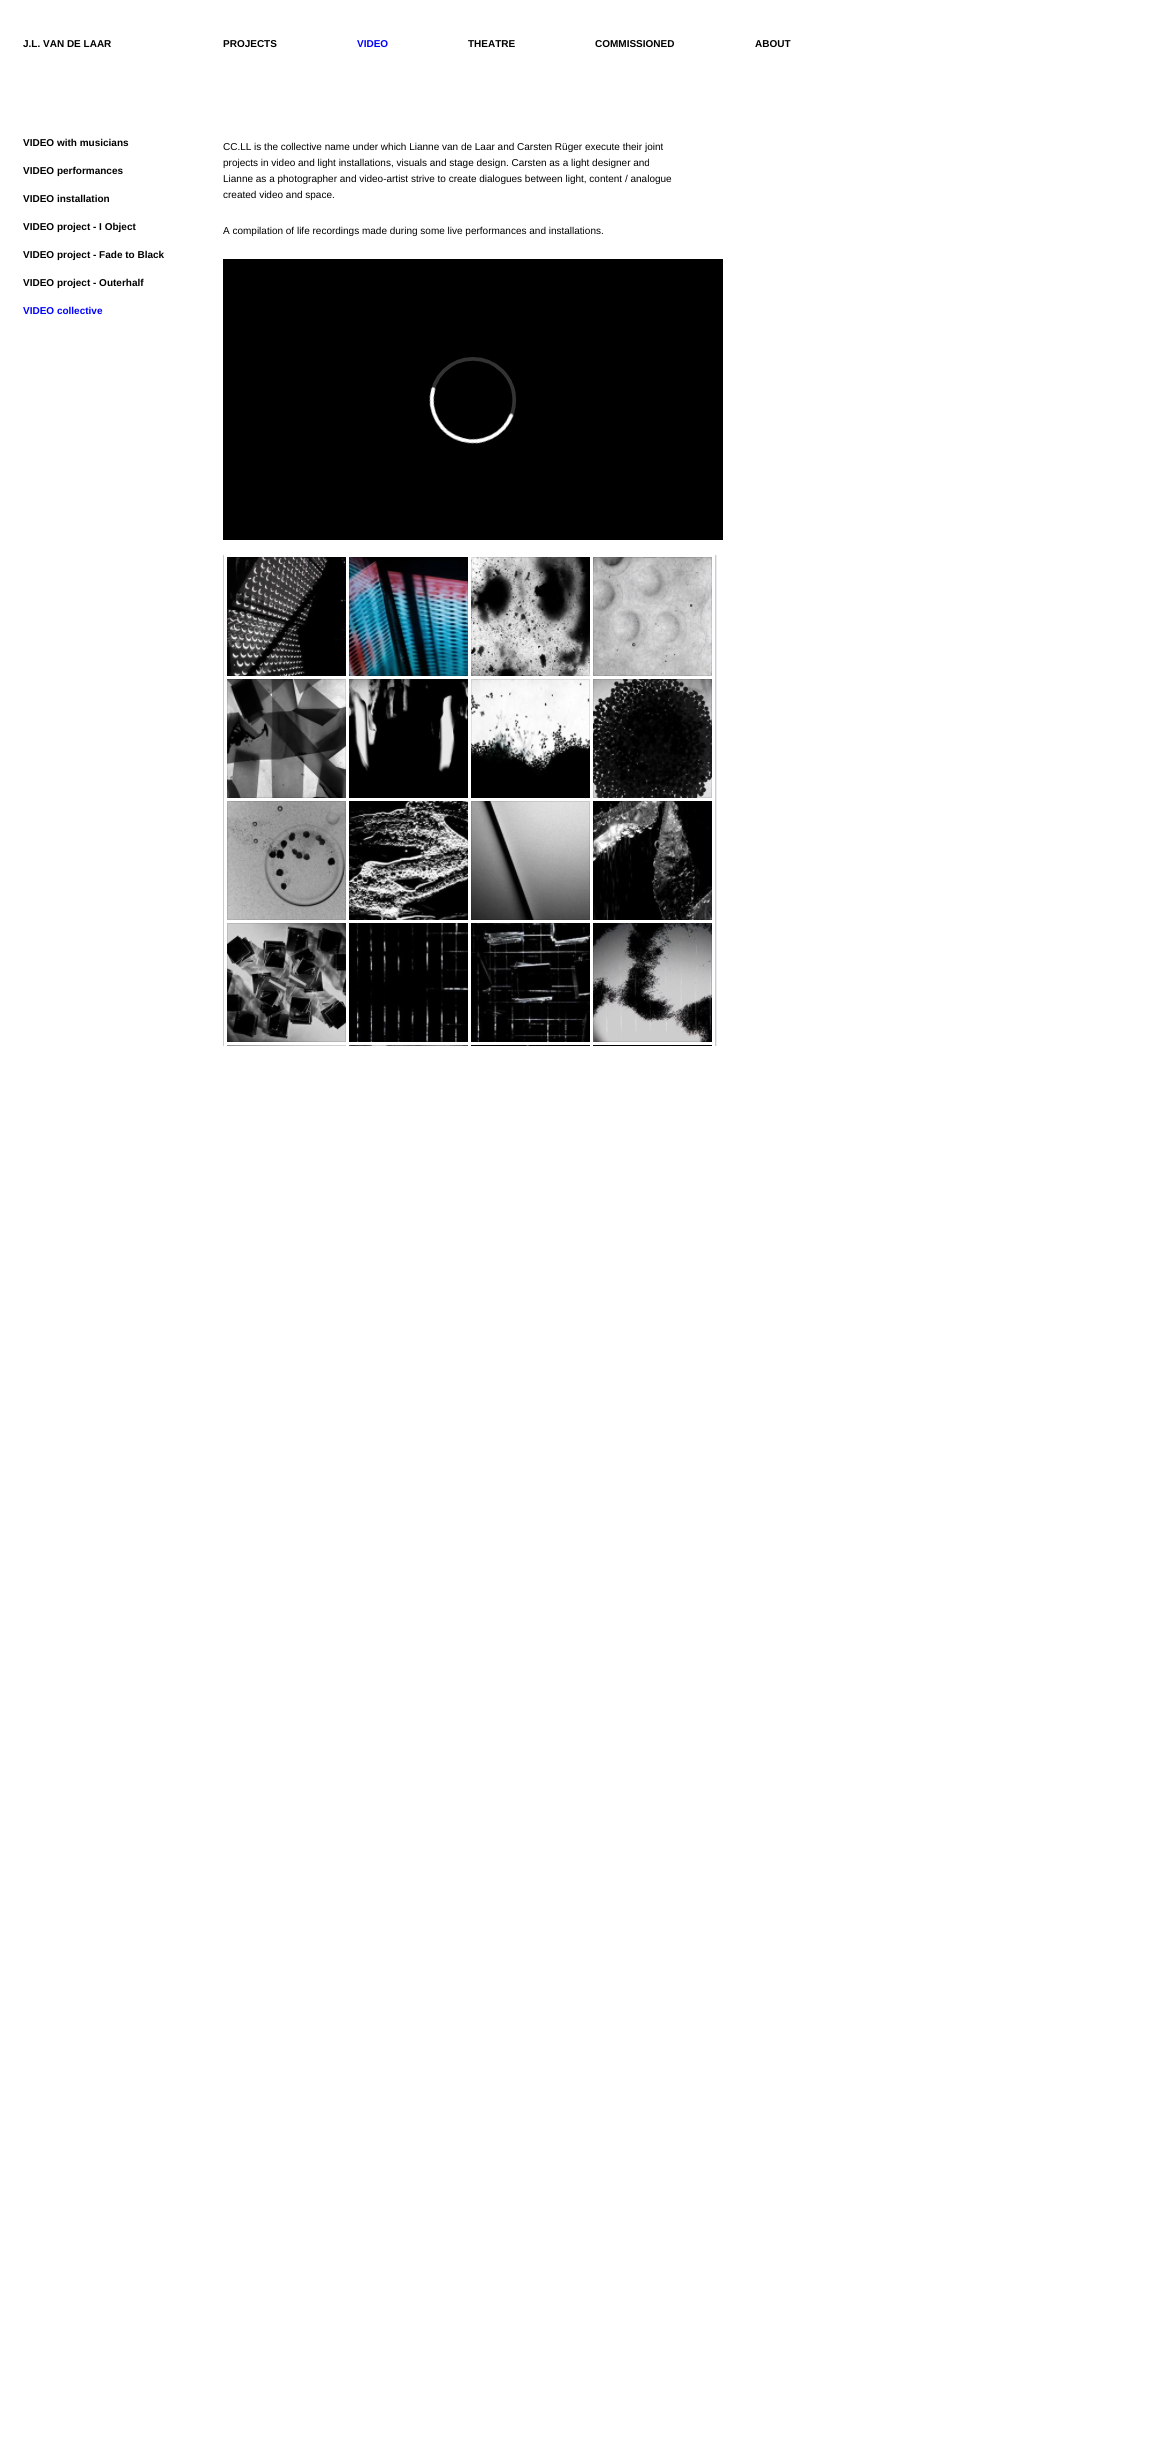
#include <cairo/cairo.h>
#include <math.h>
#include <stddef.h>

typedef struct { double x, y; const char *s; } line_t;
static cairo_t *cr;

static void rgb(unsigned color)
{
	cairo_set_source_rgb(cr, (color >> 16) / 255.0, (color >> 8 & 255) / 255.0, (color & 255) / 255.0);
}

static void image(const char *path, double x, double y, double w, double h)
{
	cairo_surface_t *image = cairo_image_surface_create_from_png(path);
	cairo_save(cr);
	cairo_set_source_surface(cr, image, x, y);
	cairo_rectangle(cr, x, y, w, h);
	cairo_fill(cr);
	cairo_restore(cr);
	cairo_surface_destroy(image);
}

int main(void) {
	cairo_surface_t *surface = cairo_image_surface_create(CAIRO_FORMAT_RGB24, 1168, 2449);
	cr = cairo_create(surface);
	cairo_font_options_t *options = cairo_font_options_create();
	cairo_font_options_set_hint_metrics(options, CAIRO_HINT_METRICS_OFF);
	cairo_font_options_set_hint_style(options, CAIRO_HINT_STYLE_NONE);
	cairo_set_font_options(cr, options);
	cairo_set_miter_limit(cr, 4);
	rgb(0xffffff);
	cairo_paint(cr);
	image("img/1.png", 223, 259, 500, 281);
	image("img/2.png", 223, 555, 494, 491);
	cairo_select_font_face(cr, "Liberation Sans", CAIRO_FONT_SLANT_NORMAL, CAIRO_FONT_WEIGHT_BOLD);
	cairo_set_font_size(cr, 10);
	rgb(0x000000);
	cairo_move_to(cr, 23, 47);
	cairo_show_text(cr, "J.L. VAN DE LAAR");
	cairo_move_to(cr, 223, 47);
	cairo_show_text(cr, "PROJECTS");
	rgb(0x0000ff);
	cairo_move_to(cr, 357, 47);
	cairo_show_text(cr, "VIDEO");
	rgb(0x000000);
	{
		static const line_t items[] = {
			{468, 47, "THEATRE"},
			{595, 47, "COMMISSIONED"},
			{755, 47, "ABOUT"},
			{23, 146, "VIDEO with musicians"},
			{23, 174, "VIDEO performances"},
			{23, 202, "VIDEO installation"},
			{23, 230, "VIDEO project - I Object"},
			{23, 258, "VIDEO project - Fade to Black"},
			{23, 286, "VIDEO project - Outerhalf"},
		};
		for (size_t i = 0; i < sizeof items / sizeof *items; i++) {
			cairo_move_to(cr, items[i].x, items[i].y);
			cairo_show_text(cr, items[i].s);
		}
	}
	rgb(0x0000ff);
	cairo_move_to(cr, 23, 314);
	cairo_show_text(cr, "VIDEO collective");
	cairo_select_font_face(cr, "Liberation Sans", CAIRO_FONT_SLANT_NORMAL, CAIRO_FONT_WEIGHT_NORMAL);
	rgb(0x000000);
	{
		static const line_t items[] = {
			{223, 150, "CC.LL is the collective name under which Lianne van de Laar and Carsten Rüger execute their joint"},
			{223, 166, "projects in video and light installations, visuals and stage design. Carsten as a light designer and"},
			{223, 182, "Lianne as a photographer and video-artist strive to create dialogues between light, content / analogue"},
			{223, 198, "created video and space."},
			{223, 234, "A compilation of life recordings made during some live performances and installations."},
		};
		for (size_t i = 0; i < sizeof items / sizeof *items; i++) {
			cairo_move_to(cr, items[i].x, items[i].y);
			cairo_show_text(cr, items[i].s);
		}
	}
	cairo_surface_write_to_png(surface, "page.png");
	cairo_font_options_destroy(options);
	cairo_destroy(cr);
	cairo_surface_destroy(surface);
	return 0;
}
